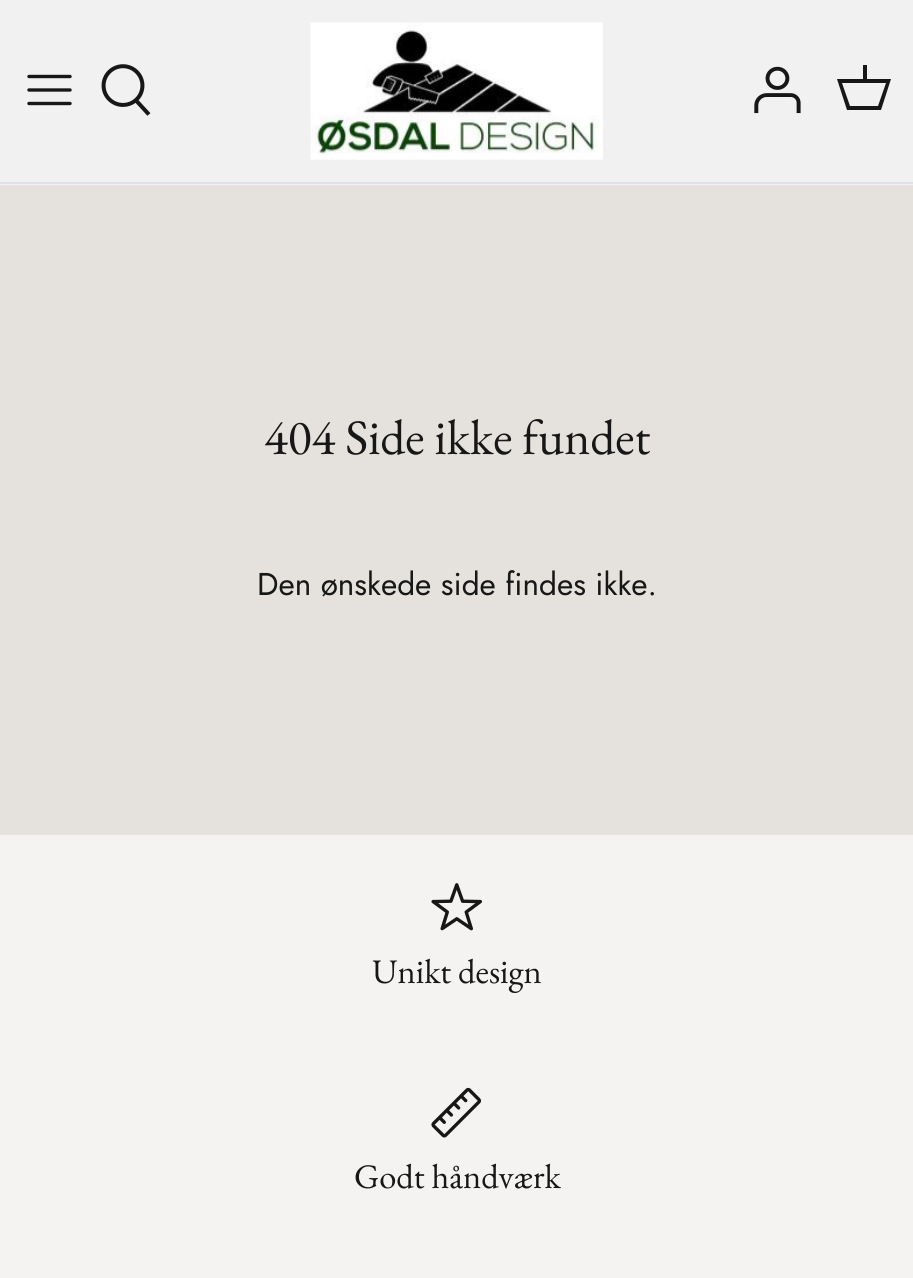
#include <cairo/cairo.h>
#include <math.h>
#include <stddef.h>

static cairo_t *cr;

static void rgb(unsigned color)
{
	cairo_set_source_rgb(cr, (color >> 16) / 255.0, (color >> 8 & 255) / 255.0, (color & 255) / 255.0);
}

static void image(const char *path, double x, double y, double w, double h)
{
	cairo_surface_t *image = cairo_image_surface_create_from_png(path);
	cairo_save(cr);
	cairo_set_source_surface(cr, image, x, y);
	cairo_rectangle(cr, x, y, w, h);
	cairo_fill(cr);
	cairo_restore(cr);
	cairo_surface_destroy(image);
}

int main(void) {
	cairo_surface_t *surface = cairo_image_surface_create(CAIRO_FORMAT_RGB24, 913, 1278);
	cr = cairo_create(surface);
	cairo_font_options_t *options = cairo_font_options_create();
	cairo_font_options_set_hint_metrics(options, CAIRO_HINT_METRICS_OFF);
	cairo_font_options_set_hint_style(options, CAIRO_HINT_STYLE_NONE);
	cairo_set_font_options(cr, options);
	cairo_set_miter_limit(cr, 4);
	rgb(0xe5e2dd);
	cairo_paint(cr);
	rgb(0xf1f1f1);
	cairo_rectangle(cr, 0, 0, 913, 185);
	cairo_fill(cr);
	rgb(0xdfe3e8);
	cairo_rectangle(cr, 0, 182, 913, 2);
	cairo_fill(cr);
	cairo_new_path(cr);
	cairo_move_to(cr, 29, 90);
	cairo_line_to(cr, 70, 90);
	cairo_move_to(cr, 29, 76.5);
	cairo_line_to(cr, 70, 76.5);
	cairo_move_to(cr, 29, 103.5);
	cairo_line_to(cr, 70, 103.5);
	rgb(0x171717);
	cairo_set_line_width(cr, 3.4);
	cairo_set_line_cap(cr, CAIRO_LINE_CAP_ROUND);
	cairo_set_line_join(cr, CAIRO_LINE_JOIN_ROUND);
	cairo_stroke(cr);
	image("img/1.png", 101, 64, 50, 52);
	image("img/2.png", 310, 22, 293, 138);
	image("img/3.png", 754, 66, 47, 48);
	cairo_new_path(cr);
	cairo_move_to(cr, 863, 79);
	cairo_line_to(cr, 863, 65);
	cairo_line_to(cr, 867, 65);
	cairo_line_to(cr, 867, 79);
	cairo_line_to(cr, 891, 79);
	cairo_line_to(cr, 881, 110);
	cairo_line_to(cr, 847, 110);
	cairo_line_to(cr, 837, 79);
	cairo_close_path(cr);
	cairo_move_to(cr, 842, 83);
	cairo_line_to(cr, 850, 106);
	cairo_line_to(cr, 878, 106);
	cairo_line_to(cr, 886, 83);
	cairo_close_path(cr);
	cairo_fill(cr);
	rgb(0xf4f3f2);
	cairo_rectangle(cr, 0, 835, 913, 443);
	cairo_fill(cr);
	image("img/4.png", 431, 883, 52, 48);
	image("img/5.png", 431, 1087, 51, 51);
	cairo_select_font_face(cr, "EB Garamond", CAIRO_FONT_SLANT_NORMAL, CAIRO_FONT_WEIGHT_NORMAL);
	cairo_set_font_size(cr, 49.5);
	rgb(0x171717);
	cairo_move_to(cr, 264, 454);
	cairo_show_text(cr, "404 Side ikke fundet");
	cairo_select_font_face(cr, "Jost", CAIRO_FONT_SLANT_NORMAL, CAIRO_FONT_WEIGHT_NORMAL);
	cairo_set_font_size(cr, 31.5);
	cairo_move_to(cr, 257, 595);
	cairo_show_text(cr, "Den ønskede side findes ikke.");
	cairo_select_font_face(cr, "EB Garamond", CAIRO_FONT_SLANT_NORMAL, CAIRO_FONT_WEIGHT_NORMAL);
	cairo_set_font_size(cr, 34.5);
	cairo_move_to(cr, 372, 983);
	cairo_show_text(cr, "Unikt design");
	cairo_move_to(cr, 354, 1188);
	cairo_show_text(cr, "Godt håndværk");
	cairo_surface_write_to_png(surface, "page.png");
	cairo_font_options_destroy(options);
	cairo_destroy(cr);
	cairo_surface_destroy(surface);
	return 0;
}
